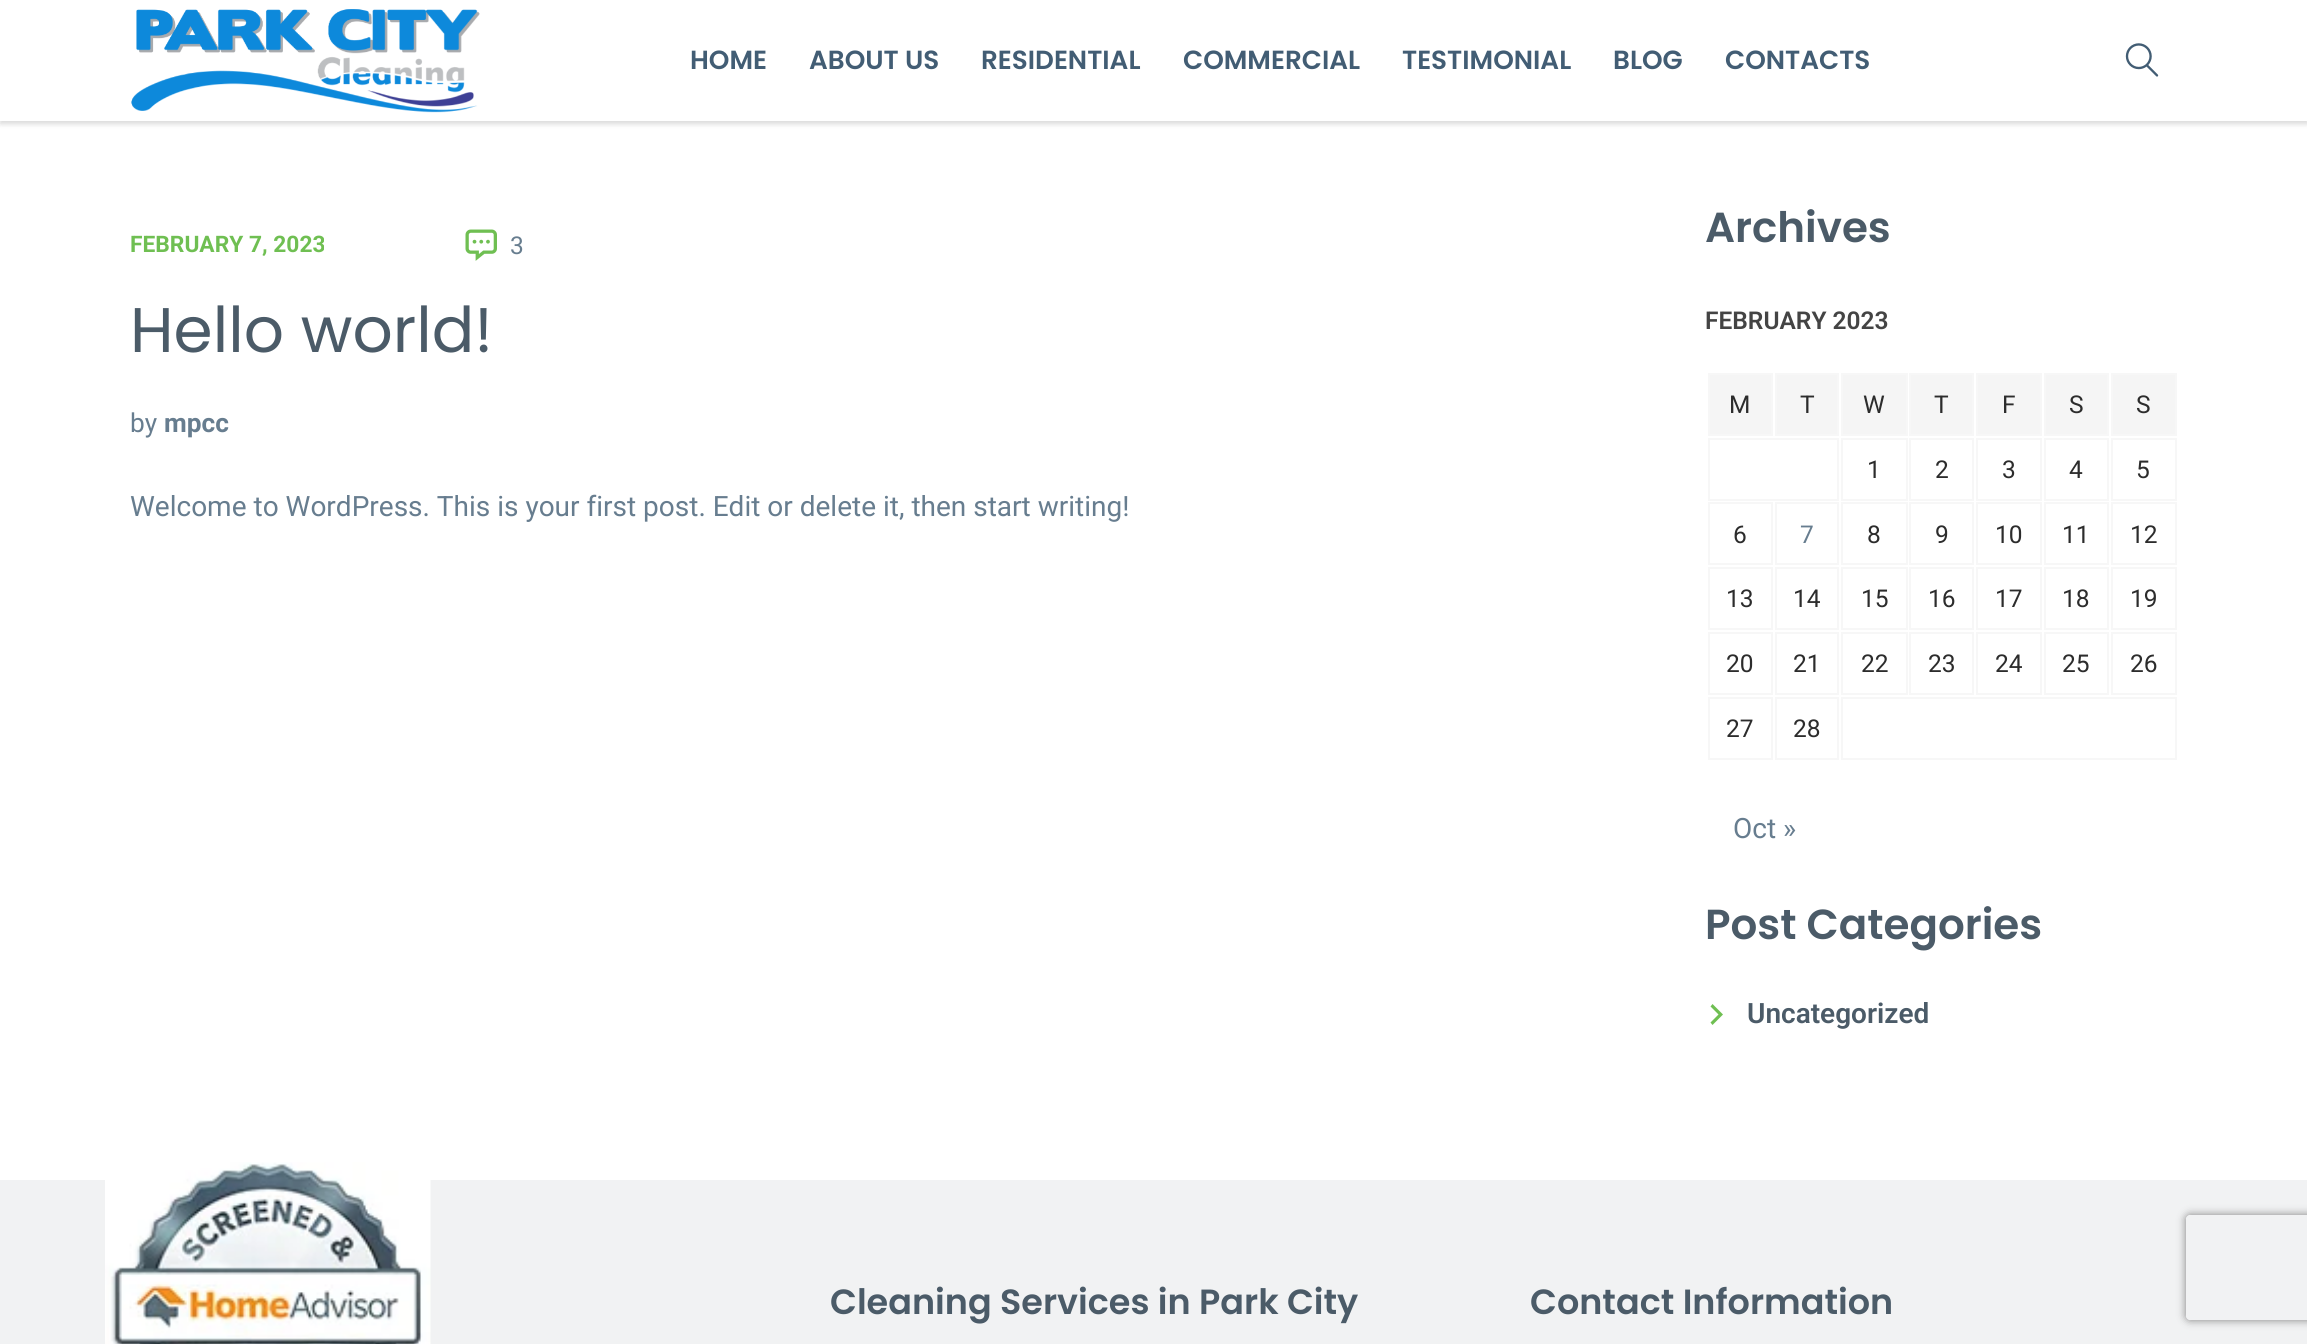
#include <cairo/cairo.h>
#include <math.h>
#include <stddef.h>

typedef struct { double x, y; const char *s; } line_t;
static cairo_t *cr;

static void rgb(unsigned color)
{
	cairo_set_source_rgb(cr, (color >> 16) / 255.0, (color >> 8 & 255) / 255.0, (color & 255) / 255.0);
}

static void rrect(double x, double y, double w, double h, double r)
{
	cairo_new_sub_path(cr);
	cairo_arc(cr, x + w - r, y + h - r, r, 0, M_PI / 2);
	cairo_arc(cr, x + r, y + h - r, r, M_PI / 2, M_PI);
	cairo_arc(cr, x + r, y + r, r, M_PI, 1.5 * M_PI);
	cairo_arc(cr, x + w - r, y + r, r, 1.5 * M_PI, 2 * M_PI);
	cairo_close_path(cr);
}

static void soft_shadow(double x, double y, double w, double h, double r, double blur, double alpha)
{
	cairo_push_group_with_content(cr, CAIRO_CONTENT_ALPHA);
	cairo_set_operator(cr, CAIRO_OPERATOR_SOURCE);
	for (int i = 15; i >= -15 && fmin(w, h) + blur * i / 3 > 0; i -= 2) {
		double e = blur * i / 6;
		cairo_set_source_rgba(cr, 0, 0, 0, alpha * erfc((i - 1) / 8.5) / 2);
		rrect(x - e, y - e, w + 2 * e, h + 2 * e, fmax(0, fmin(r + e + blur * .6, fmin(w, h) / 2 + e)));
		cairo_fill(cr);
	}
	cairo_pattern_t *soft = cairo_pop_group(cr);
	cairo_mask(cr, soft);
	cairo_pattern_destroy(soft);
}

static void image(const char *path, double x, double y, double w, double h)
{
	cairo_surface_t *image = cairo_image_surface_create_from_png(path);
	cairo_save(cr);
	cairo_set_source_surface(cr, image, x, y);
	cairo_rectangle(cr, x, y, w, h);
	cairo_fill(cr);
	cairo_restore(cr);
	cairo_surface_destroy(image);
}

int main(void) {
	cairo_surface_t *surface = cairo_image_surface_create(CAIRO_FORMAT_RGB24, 2307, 1344);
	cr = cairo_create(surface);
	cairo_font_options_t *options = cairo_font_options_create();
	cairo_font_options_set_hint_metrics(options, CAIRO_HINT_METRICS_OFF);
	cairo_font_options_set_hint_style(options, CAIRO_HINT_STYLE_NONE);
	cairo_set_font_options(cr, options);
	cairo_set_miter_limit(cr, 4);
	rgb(0xffffff);
	cairo_paint(cr);
	rgb(0x000000);
	soft_shadow(0, 4, 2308, 120, 0, 2.5, 0.15);
	rgb(0xffffff);
	cairo_rectangle(cr, 0, 0, 2307, 121);
	cairo_fill(cr);
	image("img/1.png", 131, 9, 349, 104);
	image("img/2.png", 2125, 43, 34, 34);
	image("img/3.png", 465, 229, 32, 32);
	rgb(0xf5f5f5);
	cairo_rectangle(cr, 1709, 374, 63, 61);
	cairo_fill_preserve(cr);
	rgb(0xf7f7f7);
	cairo_stroke(cr);
	rgb(0xf5f5f5);
	cairo_rectangle(cr, 1776, 374, 62, 61);
	cairo_fill_preserve(cr);
	rgb(0xf7f7f7);
	cairo_stroke(cr);
	rgb(0xf5f5f5);
	cairo_rectangle(cr, 1842, 374, 65, 61);
	cairo_fill_preserve(cr);
	rgb(0xf7f7f7);
	cairo_stroke(cr);
	rgb(0xf5f5f5);
	cairo_rectangle(cr, 1910, 374, 63, 61);
	cairo_fill_preserve(cr);
	rgb(0xf7f7f7);
	cairo_stroke(cr);
	rgb(0xf5f5f5);
	cairo_rectangle(cr, 1977, 374, 64, 61);
	cairo_fill_preserve(cr);
	rgb(0xf7f7f7);
	cairo_stroke(cr);
	rgb(0xf5f5f5);
	cairo_rectangle(cr, 2045, 374, 63, 61);
	cairo_fill_preserve(cr);
	rgb(0xf7f7f7);
	cairo_stroke(cr);
	rgb(0xf5f5f5);
	cairo_rectangle(cr, 2112, 374, 64, 61);
	cairo_fill_preserve(cr);
	rgb(0xf7f7f7);
	cairo_stroke(cr);
	cairo_rectangle(cr, 1709, 439, 129, 61);
	cairo_stroke(cr);
	cairo_rectangle(cr, 1842, 439, 65, 61);
	cairo_stroke(cr);
	cairo_rectangle(cr, 1910, 439, 63, 61);
	cairo_stroke(cr);
	cairo_rectangle(cr, 1977, 439, 64, 61);
	cairo_stroke(cr);
	cairo_rectangle(cr, 2045, 439, 63, 61);
	cairo_stroke(cr);
	cairo_rectangle(cr, 2112, 439, 64, 61);
	cairo_stroke(cr);
	cairo_rectangle(cr, 1709, 503, 63, 61);
	cairo_stroke(cr);
	cairo_rectangle(cr, 1776, 503, 62, 61);
	cairo_stroke(cr);
	cairo_rectangle(cr, 1842, 503, 65, 61);
	cairo_stroke(cr);
	cairo_rectangle(cr, 1910, 503, 63, 61);
	cairo_stroke(cr);
	cairo_rectangle(cr, 1977, 503, 64, 61);
	cairo_stroke(cr);
	cairo_rectangle(cr, 2045, 503, 63, 61);
	cairo_stroke(cr);
	cairo_rectangle(cr, 2112, 503, 64, 61);
	cairo_stroke(cr);
	cairo_rectangle(cr, 1709, 568, 63, 61);
	cairo_stroke(cr);
	cairo_rectangle(cr, 1776, 568, 62, 61);
	cairo_stroke(cr);
	cairo_rectangle(cr, 1842, 568, 65, 61);
	cairo_stroke(cr);
	cairo_rectangle(cr, 1910, 568, 63, 61);
	cairo_stroke(cr);
	cairo_rectangle(cr, 1977, 568, 64, 61);
	cairo_stroke(cr);
	cairo_rectangle(cr, 2045, 568, 63, 61);
	cairo_stroke(cr);
	cairo_rectangle(cr, 2112, 568, 64, 61);
	cairo_stroke(cr);
	cairo_rectangle(cr, 1709, 633, 63, 61);
	cairo_stroke(cr);
	cairo_rectangle(cr, 1776, 633, 62, 61);
	cairo_stroke(cr);
	cairo_rectangle(cr, 1842, 633, 65, 61);
	cairo_stroke(cr);
	cairo_rectangle(cr, 1910, 633, 63, 61);
	cairo_stroke(cr);
	cairo_rectangle(cr, 1977, 633, 64, 61);
	cairo_stroke(cr);
	cairo_rectangle(cr, 2045, 633, 63, 61);
	cairo_stroke(cr);
	cairo_rectangle(cr, 2112, 633, 64, 61);
	cairo_stroke(cr);
	cairo_rectangle(cr, 1709, 698, 63, 61);
	cairo_stroke(cr);
	cairo_rectangle(cr, 1776, 698, 62, 61);
	cairo_stroke(cr);
	cairo_rectangle(cr, 1842, 698, 334, 61);
	cairo_stroke(cr);
	rgb(0x6fbf52);
	cairo_new_path(cr);
	cairo_move_to(cr, 1712.5, 1004);
	cairo_line_to(cr, 1710.5, 1006.5);
	cairo_line_to(cr, 1718.5, 1014.5);
	cairo_line_to(cr, 1710.5, 1022.5);
	cairo_line_to(cr, 1712.5, 1025);
	cairo_line_to(cr, 1723, 1014.5);
	cairo_close_path(cr);
	cairo_fill(cr);
	rgb(0xf1f2f3);
	cairo_rectangle(cr, 0, 1180, 2307, 164);
	cairo_fill(cr);
	image("img/4.png", 105, 1162, 326, 182);
	cairo_save(cr);
	cairo_set_fill_rule(cr, CAIRO_FILL_RULE_EVEN_ODD);
	cairo_new_path(cr);
	cairo_move_to(cr, 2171, 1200);
	cairo_line_to(cr, 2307, 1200);
	cairo_line_to(cr, 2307, 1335);
	cairo_line_to(cr, 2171, 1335);
	cairo_close_path(cr);
	cairo_move_to(cr, 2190, 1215);
	cairo_line_to(cr, 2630, 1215);
	cairo_curve_to(cr, 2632, 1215, 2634, 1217, 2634, 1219);
	cairo_line_to(cr, 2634, 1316);
	cairo_curve_to(cr, 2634, 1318, 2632, 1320, 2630, 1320);
	cairo_line_to(cr, 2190, 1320);
	cairo_curve_to(cr, 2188, 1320, 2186, 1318, 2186, 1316);
	cairo_line_to(cr, 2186, 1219);
	cairo_curve_to(cr, 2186, 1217, 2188, 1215, 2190, 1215);
	cairo_close_path(cr);
	cairo_clip(cr);
	rgb(0x808080);
	soft_shadow(2186, 1215, 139, 105, 4, 4.5, 1);
	cairo_restore(cr);
	cairo_select_font_face(cr, "Poppins SemiBold", CAIRO_FONT_SLANT_NORMAL, CAIRO_FONT_WEIGHT_NORMAL);
	cairo_set_font_size(cr, 26.25);
	rgb(0x425d74);
	{
		static const line_t items[] = {
			{690, 69, "HOME"},
			{809, 69, "ABOUT US"},
			{981, 69, "RESIDENTIAL"},
			{1183, 69, "COMMERCIAL"},
			{1402, 69, "TESTIMONIAL"},
			{1613, 69, "BLOG"},
			{1725, 69, "CONTACTS"},
		};
		for (size_t i = 0; i < sizeof items / sizeof *items; i++) {
			cairo_move_to(cr, items[i].x, items[i].y);
			cairo_show_text(cr, items[i].s);
		}
	}
	cairo_select_font_face(cr, "Roboto", CAIRO_FONT_SLANT_NORMAL, CAIRO_FONT_WEIGHT_BOLD);
	cairo_set_font_size(cr, 22.75);
	rgb(0x6fbf52);
	cairo_move_to(cr, 130, 252);
	cairo_show_text(cr, "FEBRUARY 7, 2023");
	cairo_select_font_face(cr, "Roboto", CAIRO_FONT_SLANT_NORMAL, CAIRO_FONT_WEIGHT_NORMAL);
	cairo_set_font_size(cr, 24.5);
	rgb(0x677d8f);
	cairo_move_to(cr, 510, 254);
	cairo_show_text(cr, "3");
	cairo_select_font_face(cr, "Poppins", CAIRO_FONT_SLANT_NORMAL, CAIRO_FONT_WEIGHT_NORMAL);
	cairo_set_font_size(cr, 63);
	rgb(0x4b5b68);
	cairo_move_to(cr, 130, 352);
	cairo_show_text(cr, "Hello world!");
	cairo_select_font_face(cr, "Roboto", CAIRO_FONT_SLANT_NORMAL, CAIRO_FONT_WEIGHT_NORMAL);
	cairo_set_font_size(cr, 26.25);
	rgb(0x677d8f);
	cairo_move_to(cr, 130, 432);
	cairo_show_text(cr, "by");
	cairo_select_font_face(cr, "Roboto", CAIRO_FONT_SLANT_NORMAL, CAIRO_FONT_WEIGHT_BOLD);
	cairo_move_to(cr, 164, 432);
	cairo_show_text(cr, "mpcc");
	cairo_select_font_face(cr, "Roboto", CAIRO_FONT_SLANT_NORMAL, CAIRO_FONT_WEIGHT_NORMAL);
	cairo_set_font_size(cr, 28);
	cairo_move_to(cr, 130, 516);
	cairo_show_text(cr, "Welcome to WordPress. This is your first post. Edit or delete it, then start writing!");
	cairo_select_font_face(cr, "Poppins SemiBold", CAIRO_FONT_SLANT_NORMAL, CAIRO_FONT_WEIGHT_NORMAL);
	cairo_set_font_size(cr, 42);
	rgb(0x4b5b68);
	cairo_move_to(cr, 1705, 242);
	cairo_show_text(cr, "Archives");
	cairo_select_font_face(cr, "Roboto SemiBold", CAIRO_FONT_SLANT_NORMAL, CAIRO_FONT_WEIGHT_NORMAL);
	cairo_set_font_size(cr, 24.5);
	rgb(0x444444);
	cairo_move_to(cr, 1705, 329);
	cairo_show_text(cr, "FEBRUARY 2023");
	cairo_select_font_face(cr, "Roboto", CAIRO_FONT_SLANT_NORMAL, CAIRO_FONT_WEIGHT_NORMAL);
	rgb(0x2c2c2c);
	{
		static const line_t items[] = {
			{1729, 413, "M"},
			{1800, 413, "T"},
			{1863, 413, "W"},
			{1934, 413, "T"},
			{2002, 413, "F"},
			{2069, 413, "S"},
			{2136, 413, "S"},
			{1867, 478, "1"},
			{1935, 478, "2"},
			{2002, 478, "3"},
			{2069, 478, "4"},
			{2136, 478, "5"},
			{1733, 543, "6"},
		};
		for (size_t i = 0; i < sizeof items / sizeof *items; i++) {
			cairo_move_to(cr, items[i].x, items[i].y);
			cairo_show_text(cr, items[i].s);
		}
	}
	rgb(0x677d8f);
	cairo_move_to(cr, 1800, 543);
	cairo_show_text(cr, "7");
	rgb(0x2c2c2c);
	{
		static const line_t items[] = {
			{1867, 543, "8"},
			{1935, 543, "9"},
			{1995, 543, "10"},
			{2062, 543, "11"},
			{2130, 543, "12"},
			{1726, 607, "13"},
			{1793, 607, "14"},
			{1861, 607, "15"},
			{1928, 607, "16"},
			{1995, 607, "17"},
			{2062, 607, "18"},
			{2130, 607, "19"},
			{1726, 672, "20"},
			{1793, 672, "21"},
			{1861, 672, "22"},
			{1928, 672, "23"},
			{1995, 672, "24"},
			{2062, 672, "25"},
			{2130, 672, "26"},
			{1726, 737, "27"},
			{1793, 737, "28"},
		};
		for (size_t i = 0; i < sizeof items / sizeof *items; i++) {
			cairo_move_to(cr, items[i].x, items[i].y);
			cairo_show_text(cr, items[i].s);
		}
	}
	cairo_set_font_size(cr, 28);
	rgb(0x677d8f);
	cairo_move_to(cr, 1733, 838);
	cairo_show_text(cr, "Oct »");
	cairo_select_font_face(cr, "Poppins SemiBold", CAIRO_FONT_SLANT_NORMAL, CAIRO_FONT_WEIGHT_NORMAL);
	cairo_set_font_size(cr, 42);
	rgb(0x4b5b68);
	cairo_move_to(cr, 1705, 939);
	cairo_show_text(cr, "Post Categories");
	cairo_select_font_face(cr, "Roboto SemiBold", CAIRO_FONT_SLANT_NORMAL, CAIRO_FONT_WEIGHT_NORMAL);
	cairo_set_font_size(cr, 28);
	cairo_move_to(cr, 1747, 1023);
	cairo_show_text(cr, "Uncategorized");
	cairo_select_font_face(cr, "Poppins SemiBold", CAIRO_FONT_SLANT_NORMAL, CAIRO_FONT_WEIGHT_NORMAL);
	cairo_set_font_size(cr, 35);
	cairo_move_to(cr, 830, 1314);
	cairo_show_text(cr, "Cleaning Services in Park City");
	cairo_move_to(cr, 1530, 1314);
	cairo_show_text(cr, "Contact Information");
	cairo_surface_write_to_png(surface, "page.png");
	cairo_font_options_destroy(options);
	cairo_destroy(cr);
	cairo_surface_destroy(surface);
	return 0;
}
